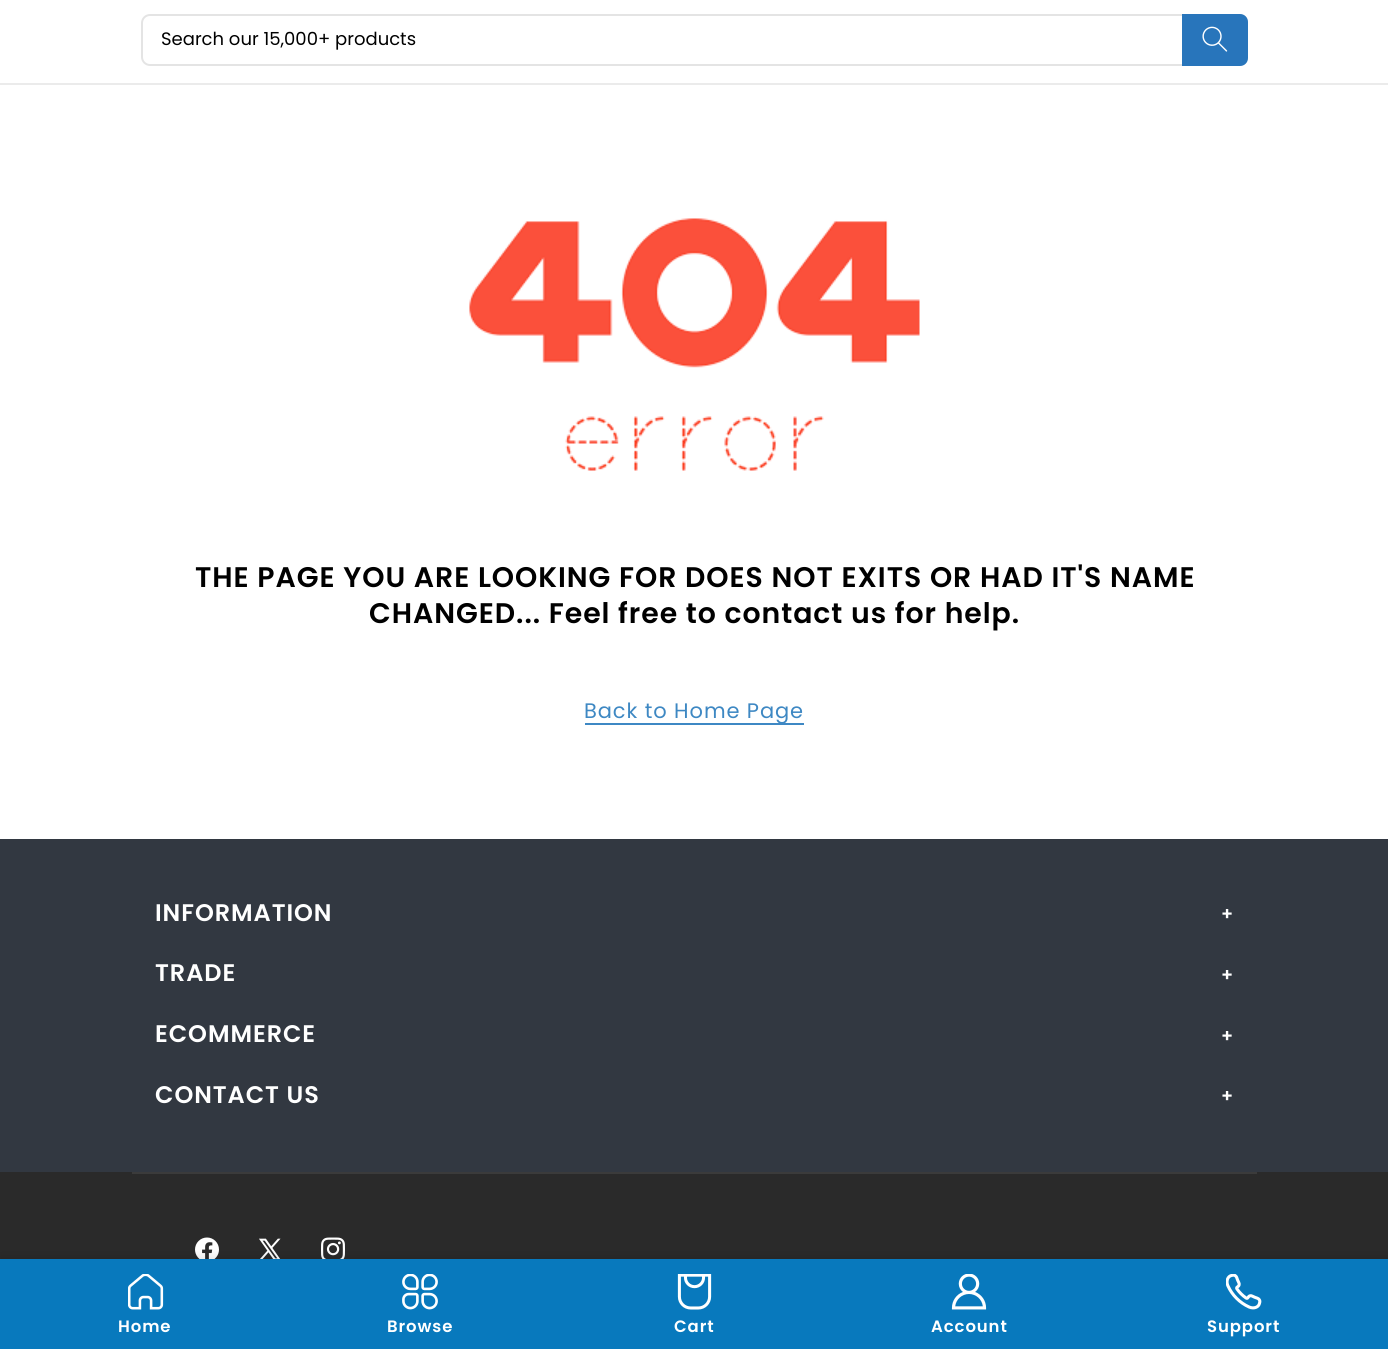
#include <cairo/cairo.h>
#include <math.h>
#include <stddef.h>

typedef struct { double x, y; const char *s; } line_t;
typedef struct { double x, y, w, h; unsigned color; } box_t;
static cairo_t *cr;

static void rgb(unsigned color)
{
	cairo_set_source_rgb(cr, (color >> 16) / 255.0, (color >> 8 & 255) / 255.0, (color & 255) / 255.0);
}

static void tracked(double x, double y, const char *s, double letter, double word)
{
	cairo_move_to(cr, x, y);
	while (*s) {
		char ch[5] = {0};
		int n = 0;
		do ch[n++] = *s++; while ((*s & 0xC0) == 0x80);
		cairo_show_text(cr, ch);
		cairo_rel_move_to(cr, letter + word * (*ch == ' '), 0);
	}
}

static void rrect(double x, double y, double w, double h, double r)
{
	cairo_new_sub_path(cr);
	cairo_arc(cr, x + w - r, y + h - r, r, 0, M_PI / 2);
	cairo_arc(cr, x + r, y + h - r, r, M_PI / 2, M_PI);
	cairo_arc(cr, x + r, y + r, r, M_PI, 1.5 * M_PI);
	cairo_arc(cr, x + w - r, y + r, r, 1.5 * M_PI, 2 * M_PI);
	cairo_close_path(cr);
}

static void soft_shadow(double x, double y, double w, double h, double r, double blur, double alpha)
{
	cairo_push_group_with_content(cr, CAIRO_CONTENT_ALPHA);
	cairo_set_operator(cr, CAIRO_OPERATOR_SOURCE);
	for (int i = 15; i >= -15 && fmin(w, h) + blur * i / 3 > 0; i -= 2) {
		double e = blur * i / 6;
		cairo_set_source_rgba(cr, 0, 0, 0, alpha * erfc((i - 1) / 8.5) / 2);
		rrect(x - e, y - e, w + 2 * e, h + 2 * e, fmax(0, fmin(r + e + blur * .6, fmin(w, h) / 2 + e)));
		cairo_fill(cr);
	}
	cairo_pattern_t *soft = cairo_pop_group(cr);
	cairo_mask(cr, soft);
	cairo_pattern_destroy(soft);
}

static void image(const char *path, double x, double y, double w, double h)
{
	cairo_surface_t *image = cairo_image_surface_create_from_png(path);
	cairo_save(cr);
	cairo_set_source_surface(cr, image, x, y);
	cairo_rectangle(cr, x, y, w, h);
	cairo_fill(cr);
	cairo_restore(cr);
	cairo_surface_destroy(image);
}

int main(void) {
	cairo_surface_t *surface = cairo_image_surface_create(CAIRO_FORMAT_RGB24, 1388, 1349);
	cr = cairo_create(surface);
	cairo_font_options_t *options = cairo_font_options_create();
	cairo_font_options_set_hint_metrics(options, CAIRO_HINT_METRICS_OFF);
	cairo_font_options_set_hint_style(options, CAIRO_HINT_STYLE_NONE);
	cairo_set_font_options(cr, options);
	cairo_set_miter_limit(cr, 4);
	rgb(0xffffff);
	cairo_paint(cr);
	rgb(0xebebeb);
	cairo_rectangle(cr, 0, 83, 1388, 2);
	cairo_fill(cr);
	rrect(142, 15, 1105, 50, 8);
	rgb(0xe4e4e4);
	cairo_stroke(cr);
	rgb(0x2875bb);
	cairo_new_path(cr);
	cairo_move_to(cr, 1182, 14);
	cairo_line_to(cr, 1240, 14);
	cairo_curve_to(cr, 1244.5, 14, 1248, 17.5, 1248, 22);
	cairo_line_to(cr, 1248, 58);
	cairo_curve_to(cr, 1248, 62.5, 1244.5, 66, 1240, 66);
	cairo_line_to(cr, 1182, 66);
	cairo_close_path(cr);
	cairo_fill(cr);
	image("img/1.png", 1202, 26, 26, 26);
	image("img/2.png", 469, 218, 451, 253);
	{
		static const box_t items[] = {
			{585, 723, 219, 2, 0x3e88c4},
			{0, 839, 1388, 333, 0x323841},
			{0, 1172, 1388, 87, 0x2a2a2a},
			{132, 1172, 1125, 2, 0x3b3b3b},
		};
		for (size_t i = 0; i < sizeof items / sizeof *items; i++) {
			rgb(items[i].color);
			cairo_rectangle(cr, items[i].x, items[i].y, items[i].w, items[i].h);
			cairo_fill(cr);
		}
	}
	image("img/3.png", 195, 1237, 24, 22);
	image("img/4.png", 259, 1238, 22, 21);
	image("img/5.png", 321, 1237, 24, 22);
	rgb(0x000000);
	soft_shadow(0, 1256, 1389, 91, 0, 4, 0.1);
	rgb(0x0879bd);
	cairo_rectangle(cr, 0, 1259, 1388, 90);
	cairo_fill(cr);
	image("img/6.png", 128, 1274, 36, 36);
	image("img/7.png", 402, 1274, 36, 36);
	image("img/8.png", 677, 1274, 35, 36);
	image("img/9.png", 951, 1274, 36, 36);
	image("img/10.png", 1226, 1274, 36, 36);
	cairo_select_font_face(cr, "Poppins", CAIRO_FONT_SLANT_NORMAL, CAIRO_FONT_WEIGHT_NORMAL);
	cairo_set_font_size(cr, 18);
	rgb(0x000000);
	cairo_move_to(cr, 161, 45);
	cairo_show_text(cr, "Search our 15,000+ products");
	cairo_select_font_face(cr, "Poppins SemiBold", CAIRO_FONT_SLANT_NORMAL, CAIRO_FONT_WEIGHT_NORMAL);
	cairo_set_font_size(cr, 28.35);
	tracked(195, 587, "THE PAGE YOU ARE LOOKING FOR DOES NOT EXITS OR HAD IT'S NAME", 0.95, 0);
	tracked(369, 623, "CHANGED... Feel free to contact us for help.", 0.95, 0);
	cairo_select_font_face(cr, "Poppins", CAIRO_FONT_SLANT_NORMAL, CAIRO_FONT_WEIGHT_NORMAL);
	cairo_set_font_size(cr, 21);
	rgb(0x3e88c3);
	tracked(584, 718, "Back to Home Page", 0.9, 0);
	cairo_select_font_face(cr, "Poppins SemiBold", CAIRO_FONT_SLANT_NORMAL, CAIRO_FONT_WEIGHT_NORMAL);
	cairo_set_font_size(cr, 24);
	rgb(0xffffff);
	tracked(155, 921, "INFORMATION", 0.95, 0);
	cairo_set_font_size(cr, 18);
	tracked(1221, 920, "+", 0.95, 0);
	cairo_set_font_size(cr, 24);
	tracked(155, 981, "TRADE", 0.95, 0);
	cairo_set_font_size(cr, 18);
	tracked(1221, 981, "+", 0.95, 0);
	cairo_set_font_size(cr, 24);
	tracked(155, 1042, "ECOMMERCE", 0.95, 0);
	cairo_set_font_size(cr, 18);
	tracked(1221, 1042, "+", 0.95, 0);
	cairo_set_font_size(cr, 24);
	tracked(155, 1103, "CONTACT US", 0.95, 0);
	cairo_set_font_size(cr, 18);
	tracked(1221, 1102, "+", 0.95, 0);
	cairo_set_font_size(cr, 16.5);
	{
		static const line_t items[] = {
			{118, 1332, "Home"},
			{387, 1332, "Browse"},
			{674, 1332, "Cart"},
			{931, 1332, "Account"},
			{1207, 1332, "Support"},
		};
		for (size_t i = 0; i < sizeof items / sizeof *items; i++) {
			tracked(items[i].x, items[i].y, items[i].s, 0.9, 0);
		}
	}
	cairo_surface_write_to_png(surface, "page.png");
	cairo_font_options_destroy(options);
	cairo_destroy(cr);
	cairo_surface_destroy(surface);
	return 0;
}
